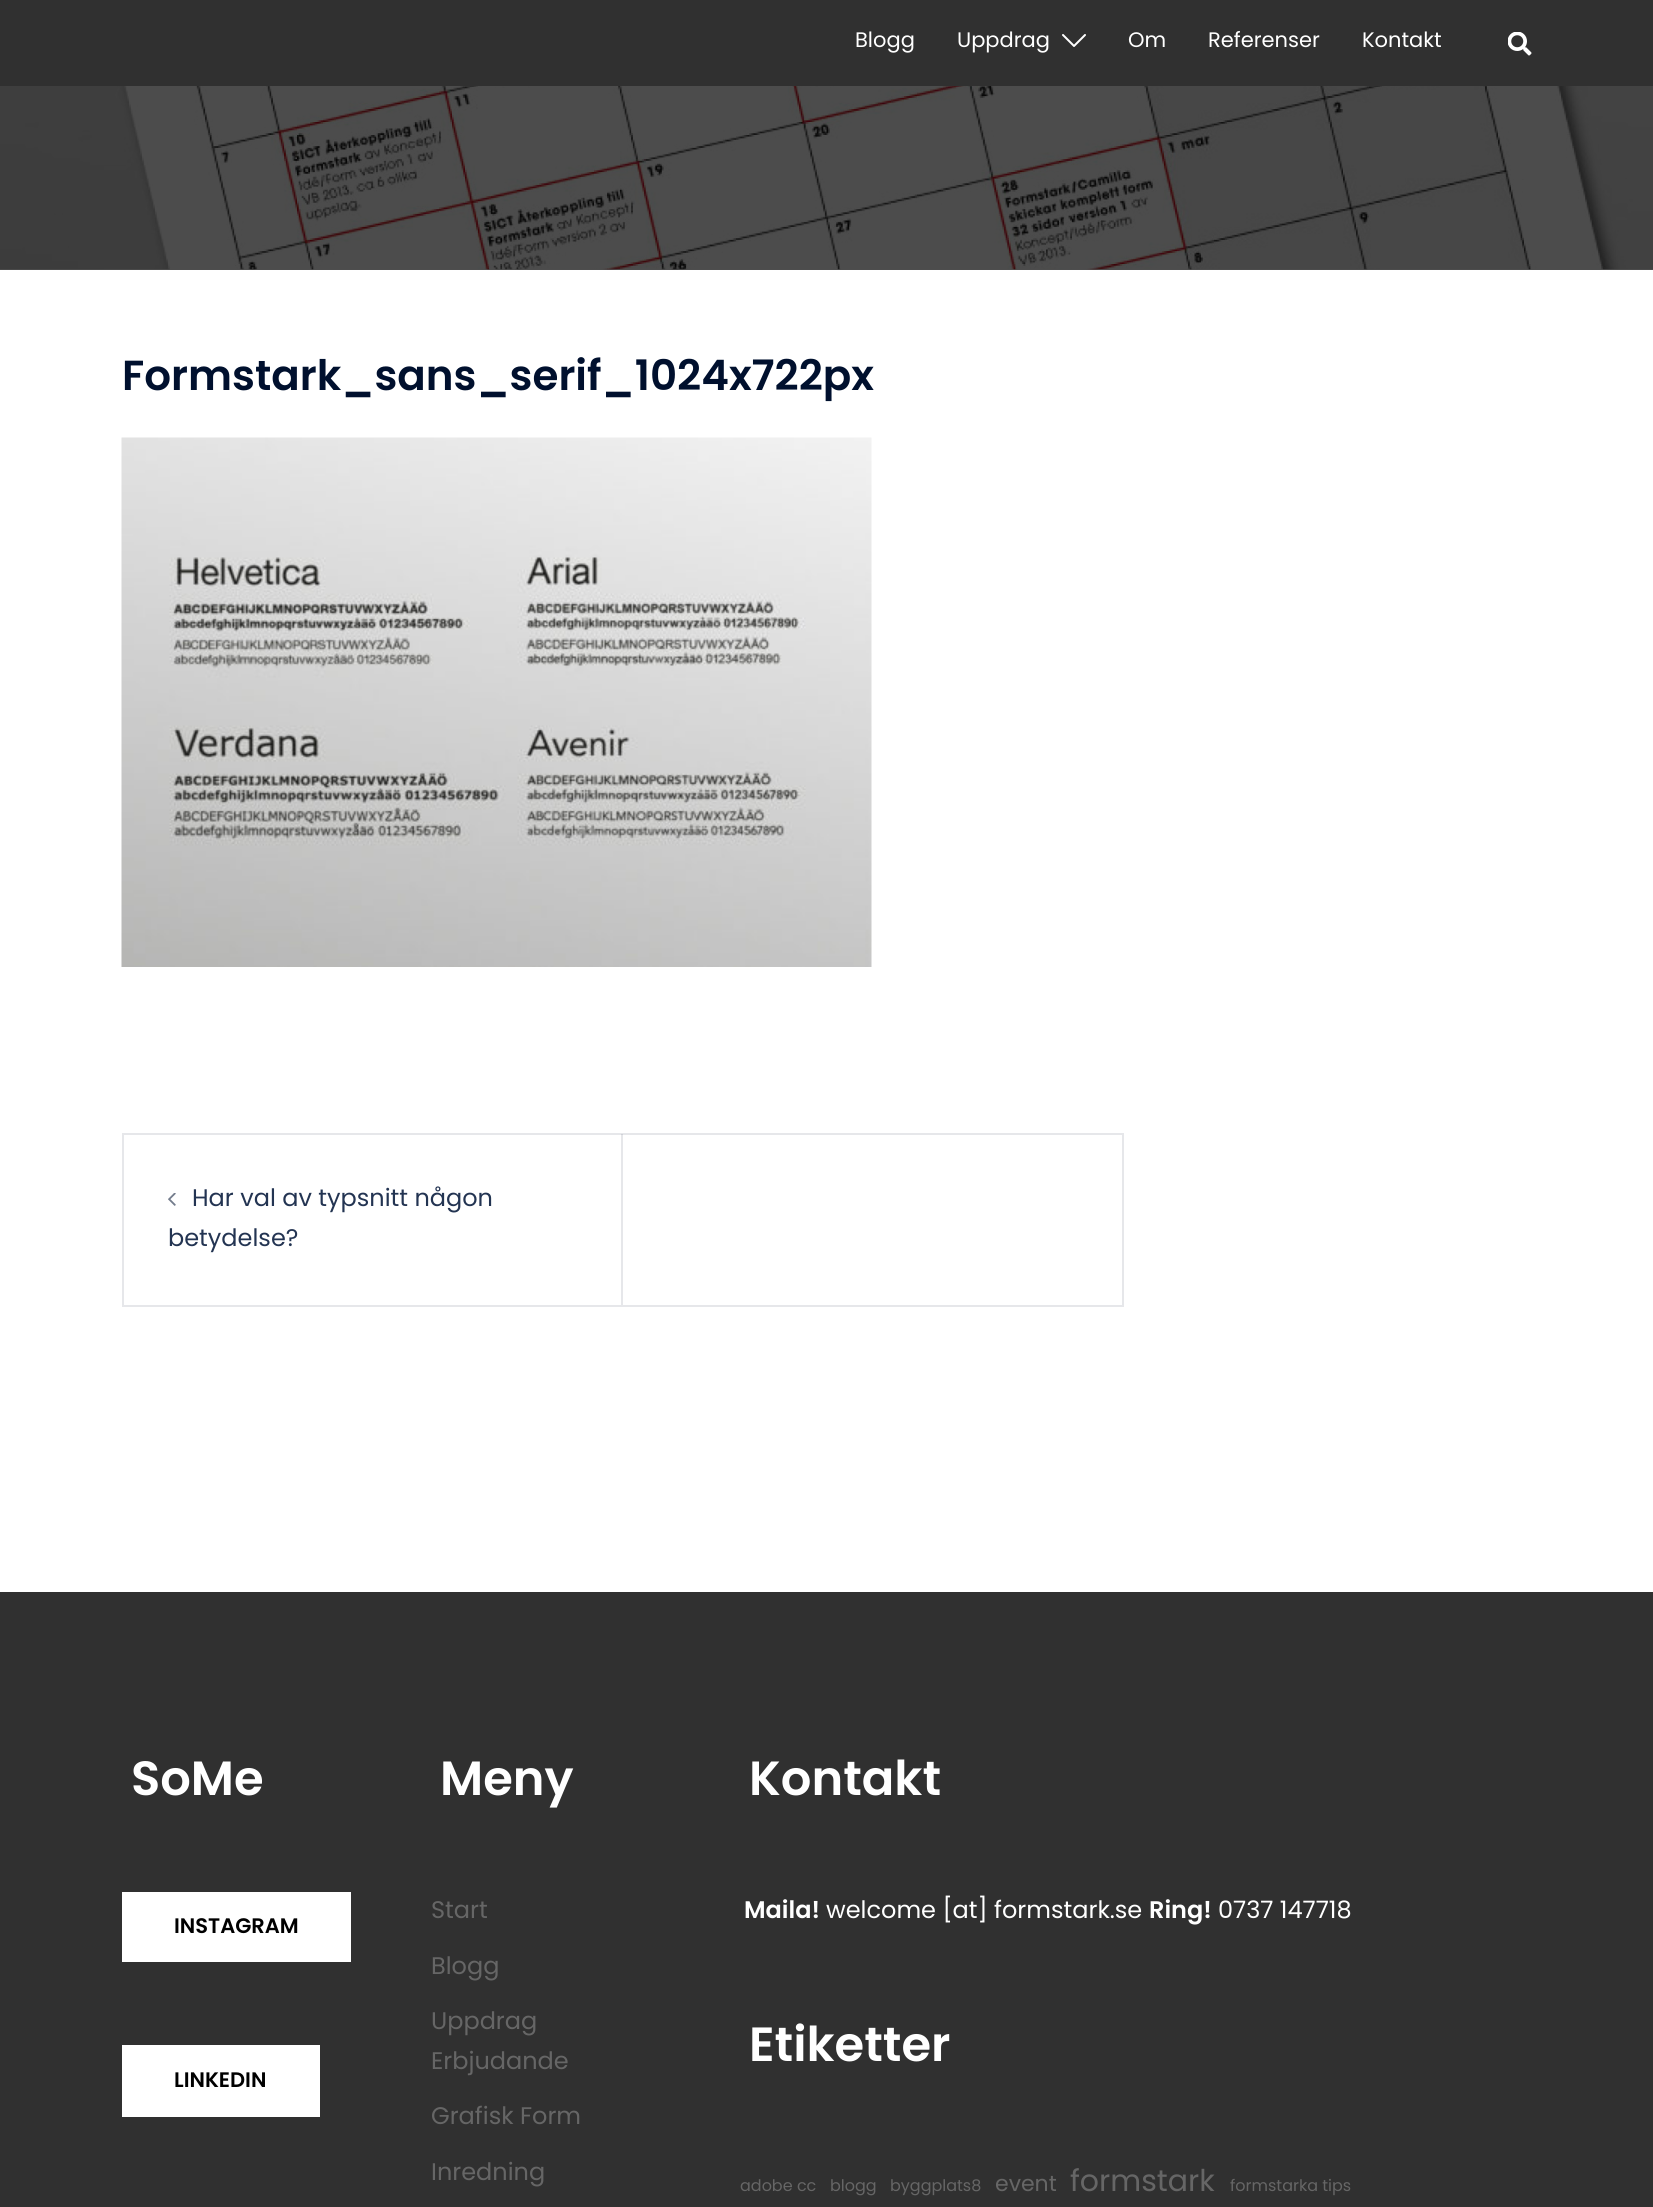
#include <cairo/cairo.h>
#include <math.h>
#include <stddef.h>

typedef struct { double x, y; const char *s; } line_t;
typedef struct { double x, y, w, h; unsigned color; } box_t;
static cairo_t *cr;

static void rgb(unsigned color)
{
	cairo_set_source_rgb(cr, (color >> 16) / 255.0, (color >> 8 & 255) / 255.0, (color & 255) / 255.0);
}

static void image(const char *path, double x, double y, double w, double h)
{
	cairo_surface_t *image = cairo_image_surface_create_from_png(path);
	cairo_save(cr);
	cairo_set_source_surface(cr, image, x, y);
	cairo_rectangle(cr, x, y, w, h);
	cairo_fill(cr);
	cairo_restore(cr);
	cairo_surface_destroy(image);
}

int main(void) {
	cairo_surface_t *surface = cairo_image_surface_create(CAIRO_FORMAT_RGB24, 1653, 2207);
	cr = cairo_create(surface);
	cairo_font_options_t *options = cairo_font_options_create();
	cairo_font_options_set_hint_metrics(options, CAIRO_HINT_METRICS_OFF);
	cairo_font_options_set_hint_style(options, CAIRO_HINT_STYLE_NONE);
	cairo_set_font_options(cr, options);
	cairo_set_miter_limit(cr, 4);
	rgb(0xffffff);
	cairo_paint(cr);
	rgb(0x4d4d4d);
	cairo_rectangle(cr, 0, 269, 1653, 1);
	cairo_fill(cr);
	rgb(0x303030);
	cairo_rectangle(cr, 0, 0, 1653, 86);
	cairo_fill(cr);
	image("img/1.png", 1062, 34, 24, 13);
	image("img/2.png", 1508, 32, 24, 24);
	image("img/3.png", 0, 86, 1653, 184);
	image("img/4.png", 121, 437, 751, 530);
	cairo_rectangle(cr, 123, 1134, 1000, 172);
	rgb(0xe6e7ea);
	cairo_stroke(cr);
	cairo_set_source_rgba(cr, 0, 0.063, 0.18, 0.1);
	cairo_rectangle(cr, 621, 1134, 2, 171);
	cairo_fill(cr);
	image("img/5.png", 168, 1193, 8, 13);
	{
		static const box_t items[] = {
			{0, 1592, 1653, 615, 0x303030},
			{122, 1892, 229, 70, 0xffffff},
			{122, 2045, 198, 72, 0xffffff},
		};
		for (size_t i = 0; i < sizeof items / sizeof *items; i++) {
			rgb(items[i].color);
			cairo_rectangle(cr, items[i].x, items[i].y, items[i].w, items[i].h);
			cairo_fill(cr);
		}
	}
	cairo_select_font_face(cr, "Poppins", CAIRO_FONT_SLANT_NORMAL, CAIRO_FONT_WEIGHT_NORMAL);
	cairo_set_font_size(cr, 21);
	{
		static const line_t items[] = {
			{855, 47, "Blogg"},
			{957, 47, "Uppdrag"},
			{1128, 47, "Om"},
			{1208, 47, "Referenser"},
			{1362, 47, "Kontakt"},
		};
		for (size_t i = 0; i < sizeof items / sizeof *items; i++) {
			cairo_move_to(cr, items[i].x, items[i].y);
			cairo_show_text(cr, items[i].s);
		}
	}
	cairo_select_font_face(cr, "Poppins SemiBold", CAIRO_FONT_SLANT_NORMAL, CAIRO_FONT_WEIGHT_NORMAL);
	cairo_set_font_size(cr, 42);
	rgb(0x00102e);
	cairo_move_to(cr, 122, 390);
	cairo_show_text(cr, "Formstark_sans_serif_1024x722px");
	cairo_select_font_face(cr, "Poppins", CAIRO_FONT_SLANT_NORMAL, CAIRO_FONT_WEIGHT_NORMAL);
	cairo_set_font_size(cr, 24);
	rgb(0x233452);
	cairo_move_to(cr, 192, 1206);
	cairo_show_text(cr, "Har val av typsnitt någon");
	cairo_move_to(cr, 168, 1246);
	cairo_show_text(cr, "betydelse?");
	cairo_select_font_face(cr, "Poppins SemiBold", CAIRO_FONT_SLANT_NORMAL, CAIRO_FONT_WEIGHT_NORMAL);
	cairo_set_font_size(cr, 48);
	rgb(0xffffff);
	cairo_move_to(cr, 131, 1795);
	cairo_show_text(cr, "SoMe");
	cairo_set_font_size(cr, 21);
	rgb(0x000000);
	cairo_move_to(cr, 174, 1933);
	cairo_show_text(cr, "INSTAGRAM");
	cairo_move_to(cr, 174, 2087);
	cairo_show_text(cr, "LINKEDIN");
	cairo_set_font_size(cr, 48);
	rgb(0xffffff);
	cairo_move_to(cr, 440, 1795);
	cairo_show_text(cr, "Meny");
	cairo_select_font_face(cr, "Poppins", CAIRO_FONT_SLANT_NORMAL, CAIRO_FONT_WEIGHT_NORMAL);
	cairo_set_font_size(cr, 24);
	rgb(0x666666);
	{
		static const line_t items[] = {
			{431, 1918, "Start"},
			{431, 1974, "Blogg"},
			{431, 2029, "Uppdrag"},
			{431, 2069, "Erbjudande"},
			{431, 2124, "Grafisk Form"},
			{431, 2180, "Inredning"},
		};
		for (size_t i = 0; i < sizeof items / sizeof *items; i++) {
			cairo_move_to(cr, items[i].x, items[i].y);
			cairo_show_text(cr, items[i].s);
		}
	}
	cairo_select_font_face(cr, "Poppins SemiBold", CAIRO_FONT_SLANT_NORMAL, CAIRO_FONT_WEIGHT_NORMAL);
	cairo_set_font_size(cr, 48);
	rgb(0xffffff);
	cairo_move_to(cr, 749, 1795);
	cairo_show_text(cr, "Kontakt");
	cairo_set_font_size(cr, 24);
	cairo_move_to(cr, 744, 1918);
	cairo_show_text(cr, "Maila!");
	cairo_select_font_face(cr, "Poppins", CAIRO_FONT_SLANT_NORMAL, CAIRO_FONT_WEIGHT_NORMAL);
	cairo_move_to(cr, 826, 1918);
	cairo_show_text(cr, "welcome [at] formstark.se");
	cairo_select_font_face(cr, "Poppins SemiBold", CAIRO_FONT_SLANT_NORMAL, CAIRO_FONT_WEIGHT_NORMAL);
	cairo_move_to(cr, 1149, 1918);
	cairo_show_text(cr, "Ring!");
	cairo_select_font_face(cr, "Poppins", CAIRO_FONT_SLANT_NORMAL, CAIRO_FONT_WEIGHT_NORMAL);
	cairo_move_to(cr, 1218, 1918);
	cairo_show_text(cr, "0737 147718");
	cairo_select_font_face(cr, "Poppins SemiBold", CAIRO_FONT_SLANT_NORMAL, CAIRO_FONT_WEIGHT_NORMAL);
	cairo_set_font_size(cr, 48);
	cairo_move_to(cr, 749, 2061);
	cairo_show_text(cr, "Etiketter");
	cairo_select_font_face(cr, "Poppins", CAIRO_FONT_SLANT_NORMAL, CAIRO_FONT_WEIGHT_NORMAL);
	cairo_set_font_size(cr, 16);
	rgb(0x666666);
	{
		static const line_t items[] = {
			{740, 2191, "adobe cc"},
			{830, 2191, "blogg"},
			{890, 2191, "byggplats8"},
		};
		for (size_t i = 0; i < sizeof items / sizeof *items; i++) {
			cairo_move_to(cr, items[i].x, items[i].y);
			cairo_show_text(cr, items[i].s);
		}
	}
	cairo_set_font_size(cr, 22);
	cairo_move_to(cr, 995, 2191);
	cairo_show_text(cr, "event");
	cairo_set_font_size(cr, 30);
	cairo_move_to(cr, 1070, 2191);
	cairo_show_text(cr, "formstark");
	cairo_set_font_size(cr, 16);
	cairo_move_to(cr, 1230, 2191);
	cairo_show_text(cr, "formstarka tips");
	cairo_surface_write_to_png(surface, "page.png");
	cairo_font_options_destroy(options);
	cairo_destroy(cr);
	cairo_surface_destroy(surface);
	return 0;
}
